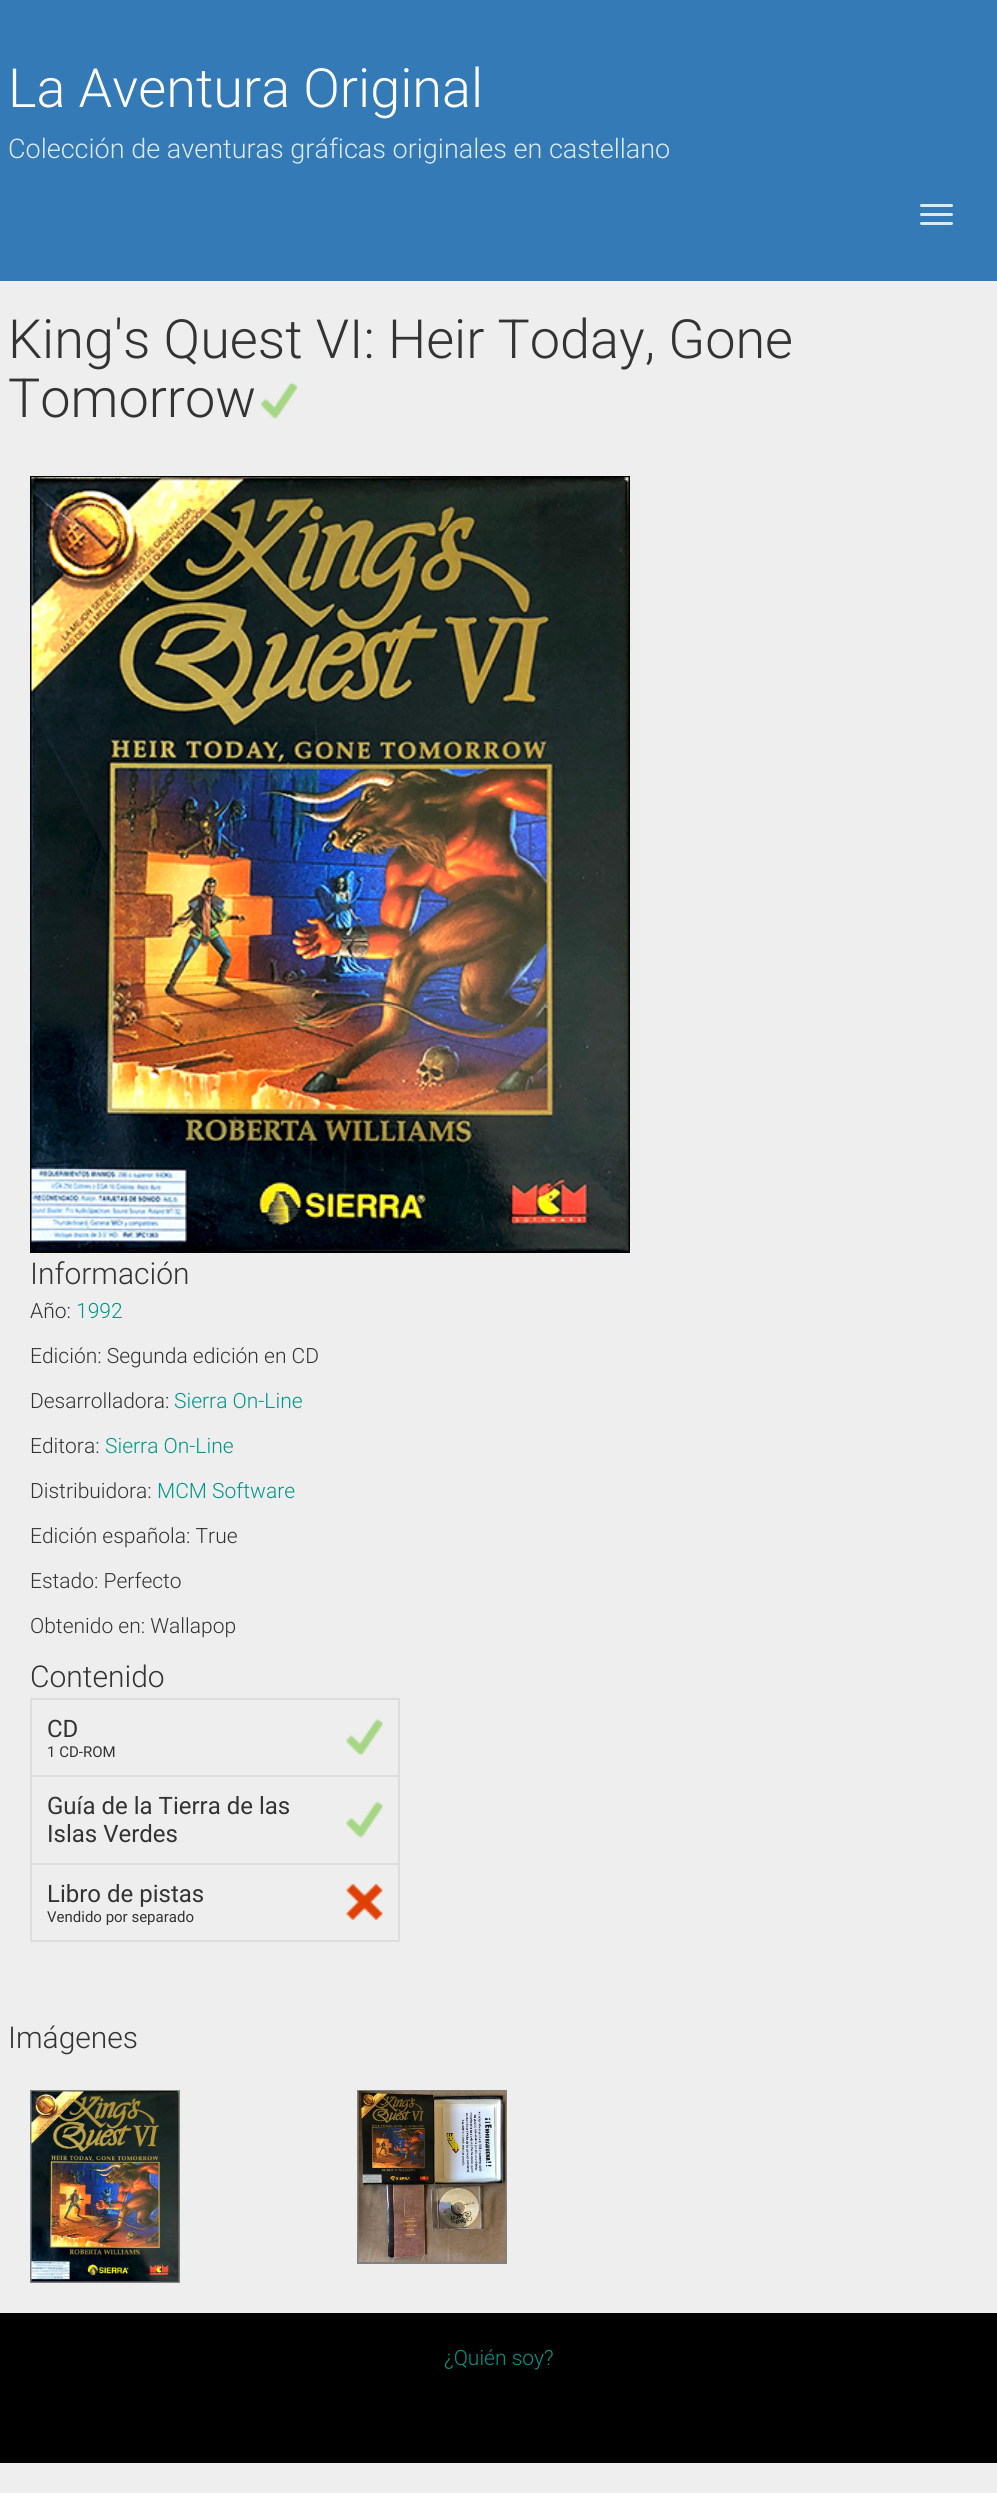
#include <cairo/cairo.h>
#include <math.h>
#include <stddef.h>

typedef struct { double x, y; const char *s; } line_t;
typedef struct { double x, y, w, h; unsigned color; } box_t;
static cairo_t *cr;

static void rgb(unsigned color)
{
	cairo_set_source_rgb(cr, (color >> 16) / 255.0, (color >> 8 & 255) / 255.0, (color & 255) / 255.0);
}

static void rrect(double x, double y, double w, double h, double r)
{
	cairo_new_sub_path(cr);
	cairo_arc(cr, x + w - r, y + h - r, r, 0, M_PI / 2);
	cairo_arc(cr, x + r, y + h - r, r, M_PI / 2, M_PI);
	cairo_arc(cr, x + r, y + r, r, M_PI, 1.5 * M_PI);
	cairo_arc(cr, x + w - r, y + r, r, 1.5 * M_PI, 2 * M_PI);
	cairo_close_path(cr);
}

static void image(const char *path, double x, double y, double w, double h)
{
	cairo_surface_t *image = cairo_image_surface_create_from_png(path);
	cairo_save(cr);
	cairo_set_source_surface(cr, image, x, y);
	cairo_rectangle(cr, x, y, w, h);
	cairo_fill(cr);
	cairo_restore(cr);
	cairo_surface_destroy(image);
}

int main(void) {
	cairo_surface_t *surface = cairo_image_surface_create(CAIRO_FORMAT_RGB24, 997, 2493);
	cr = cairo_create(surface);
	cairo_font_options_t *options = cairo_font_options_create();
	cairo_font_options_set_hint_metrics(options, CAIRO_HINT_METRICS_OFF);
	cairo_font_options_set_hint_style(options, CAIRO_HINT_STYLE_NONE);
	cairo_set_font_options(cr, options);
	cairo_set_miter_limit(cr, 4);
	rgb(0xeeeeee);
	cairo_paint(cr);
	rgb(0x337ab7);
	cairo_rectangle(cr, 0, 0, 997, 281);
	cairo_fill(cr);
	rgb(0xdeeaf3);
	rrect(920, 204, 33, 3, 1.5);
	cairo_fill(cr);
	rrect(920, 213, 33, 3, 1.5);
	cairo_fill(cr);
	rrect(920, 222, 33, 3, 1.5);
	cairo_fill(cr);
	image("img/1.png", 261, 382, 36, 37);
	cairo_rectangle(cr, 31, 477, 598, 775);
	rgb(0x000000);
	cairo_stroke(cr);
	image("img/2.png", 31, 477, 598, 774);
	{
		static const box_t items[] = {
			{30, 1698, 369, 2, 0xdddddd},
			{30, 1775, 369, 2, 0xdddddd},
			{30, 1863, 369, 2, 0xdddddd},
			{398, 1863, 2, 78, 0xdddddd},
			{398, 1775, 2, 90, 0xdddddd},
			{398, 1698, 2, 78, 0xdddddd},
			{30, 1940, 369, 2, 0xdddddd},
			{30, 1863, 2, 78, 0xdddddd},
			{30, 1775, 2, 90, 0xdddddd},
			{30, 1698, 2, 78, 0xdddddd},
		};
		for (size_t i = 0; i < sizeof items / sizeof *items; i++) {
			rgb(items[i].color);
			cairo_rectangle(cr, items[i].x, items[i].y, items[i].w, items[i].h);
			cairo_fill(cr);
		}
	}
	image("img/3.png", 346, 1719, 37, 36);
	image("img/4.png", 346, 1801, 37, 37);
	image("img/5.png", 346, 1884, 37, 36);
	cairo_rectangle(cr, 31, 2091, 148, 191);
	rgb(0x808080);
	cairo_stroke(cr);
	image("img/6.png", 31, 2091, 148, 191);
	cairo_rectangle(cr, 358, 2091, 148, 172);
	cairo_stroke(cr);
	image("img/7.png", 358, 2091, 148, 171);
	rgb(0x000000);
	cairo_rectangle(cr, 0, 2313, 997, 150);
	cairo_fill(cr);
	cairo_select_font_face(cr, "Roboto Light", CAIRO_FONT_SLANT_NORMAL, CAIRO_FONT_WEIGHT_NORMAL);
	cairo_set_font_size(cr, 54);
	rgb(0xffffff);
	cairo_move_to(cr, 8, 107);
	cairo_show_text(cr, "La Aventura Original");
	cairo_set_font_size(cr, 27);
	rgb(0xdeeaf3);
	cairo_move_to(cr, 8, 158);
	cairo_show_text(cr, "Colección de aventuras gráficas originales en castellano");
	cairo_set_font_size(cr, 54);
	rgb(0x333333);
	cairo_move_to(cr, 8, 358);
	cairo_show_text(cr, "King's Quest VI: Heir Today, Gone");
	cairo_move_to(cr, 8, 417);
	cairo_show_text(cr, "Tomorrow");
	cairo_set_font_size(cr, 30);
	cairo_move_to(cr, 30, 1284);
	cairo_show_text(cr, "Información");
	cairo_set_font_size(cr, 21);
	cairo_move_to(cr, 30, 1318);
	cairo_show_text(cr, "Año:");
	rgb(0x009688);
	cairo_move_to(cr, 76, 1318);
	cairo_show_text(cr, "1992");
	rgb(0x333333);
	cairo_move_to(cr, 30, 1363);
	cairo_show_text(cr, "Edición: Segunda edición en CD");
	cairo_move_to(cr, 30, 1408);
	cairo_show_text(cr, "Desarrolladora:");
	rgb(0x009688);
	cairo_move_to(cr, 174, 1408);
	cairo_show_text(cr, "Sierra On-Line");
	rgb(0x333333);
	cairo_move_to(cr, 30, 1453);
	cairo_show_text(cr, "Editora:");
	rgb(0x009688);
	cairo_move_to(cr, 105, 1453);
	cairo_show_text(cr, "Sierra On-Line");
	rgb(0x333333);
	cairo_move_to(cr, 30, 1498);
	cairo_show_text(cr, "Distribuidora:");
	rgb(0x009688);
	cairo_move_to(cr, 157, 1498);
	cairo_show_text(cr, "MCM Software");
	rgb(0x333333);
	{
		static const line_t items[] = {
			{30, 1543, "Edición española: True"},
			{30, 1588, "Estado: Perfecto"},
			{30, 1633, "Obtenido en: Wallapop"},
		};
		for (size_t i = 0; i < sizeof items / sizeof *items; i++) {
			cairo_move_to(cr, items[i].x, items[i].y);
			cairo_show_text(cr, items[i].s);
		}
	}
	cairo_set_font_size(cr, 30);
	cairo_move_to(cr, 30, 1687);
	cairo_show_text(cr, "Contenido");
	cairo_select_font_face(cr, "Roboto", CAIRO_FONT_SLANT_NORMAL, CAIRO_FONT_WEIGHT_NORMAL);
	cairo_set_font_size(cr, 24);
	cairo_move_to(cr, 47, 1737);
	cairo_show_text(cr, "CD");
	cairo_set_font_size(cr, 15);
	cairo_move_to(cr, 47, 1757);
	cairo_show_text(cr, "1 CD-ROM");
	cairo_set_font_size(cr, 24);
	{
		static const line_t items[] = {
			{47, 1814, "Guía de la Tierra de las"},
			{47, 1842, "Islas Verdes"},
			{47, 1902, "Libro de pistas"},
		};
		for (size_t i = 0; i < sizeof items / sizeof *items; i++) {
			cairo_move_to(cr, items[i].x, items[i].y);
			cairo_show_text(cr, items[i].s);
		}
	}
	cairo_set_font_size(cr, 15);
	cairo_move_to(cr, 47, 1922);
	cairo_show_text(cr, "Vendido por separado");
	cairo_select_font_face(cr, "Roboto Light", CAIRO_FONT_SLANT_NORMAL, CAIRO_FONT_WEIGHT_NORMAL);
	cairo_set_font_size(cr, 30);
	cairo_move_to(cr, 8, 2048);
	cairo_show_text(cr, "Imágenes");
	cairo_set_font_size(cr, 21);
	rgb(0x009688);
	cairo_move_to(cr, 444, 2365);
	cairo_show_text(cr, "¿Quién soy?");
	cairo_surface_write_to_png(surface, "page.png");
	cairo_font_options_destroy(options);
	cairo_destroy(cr);
	cairo_surface_destroy(surface);
	return 0;
}
